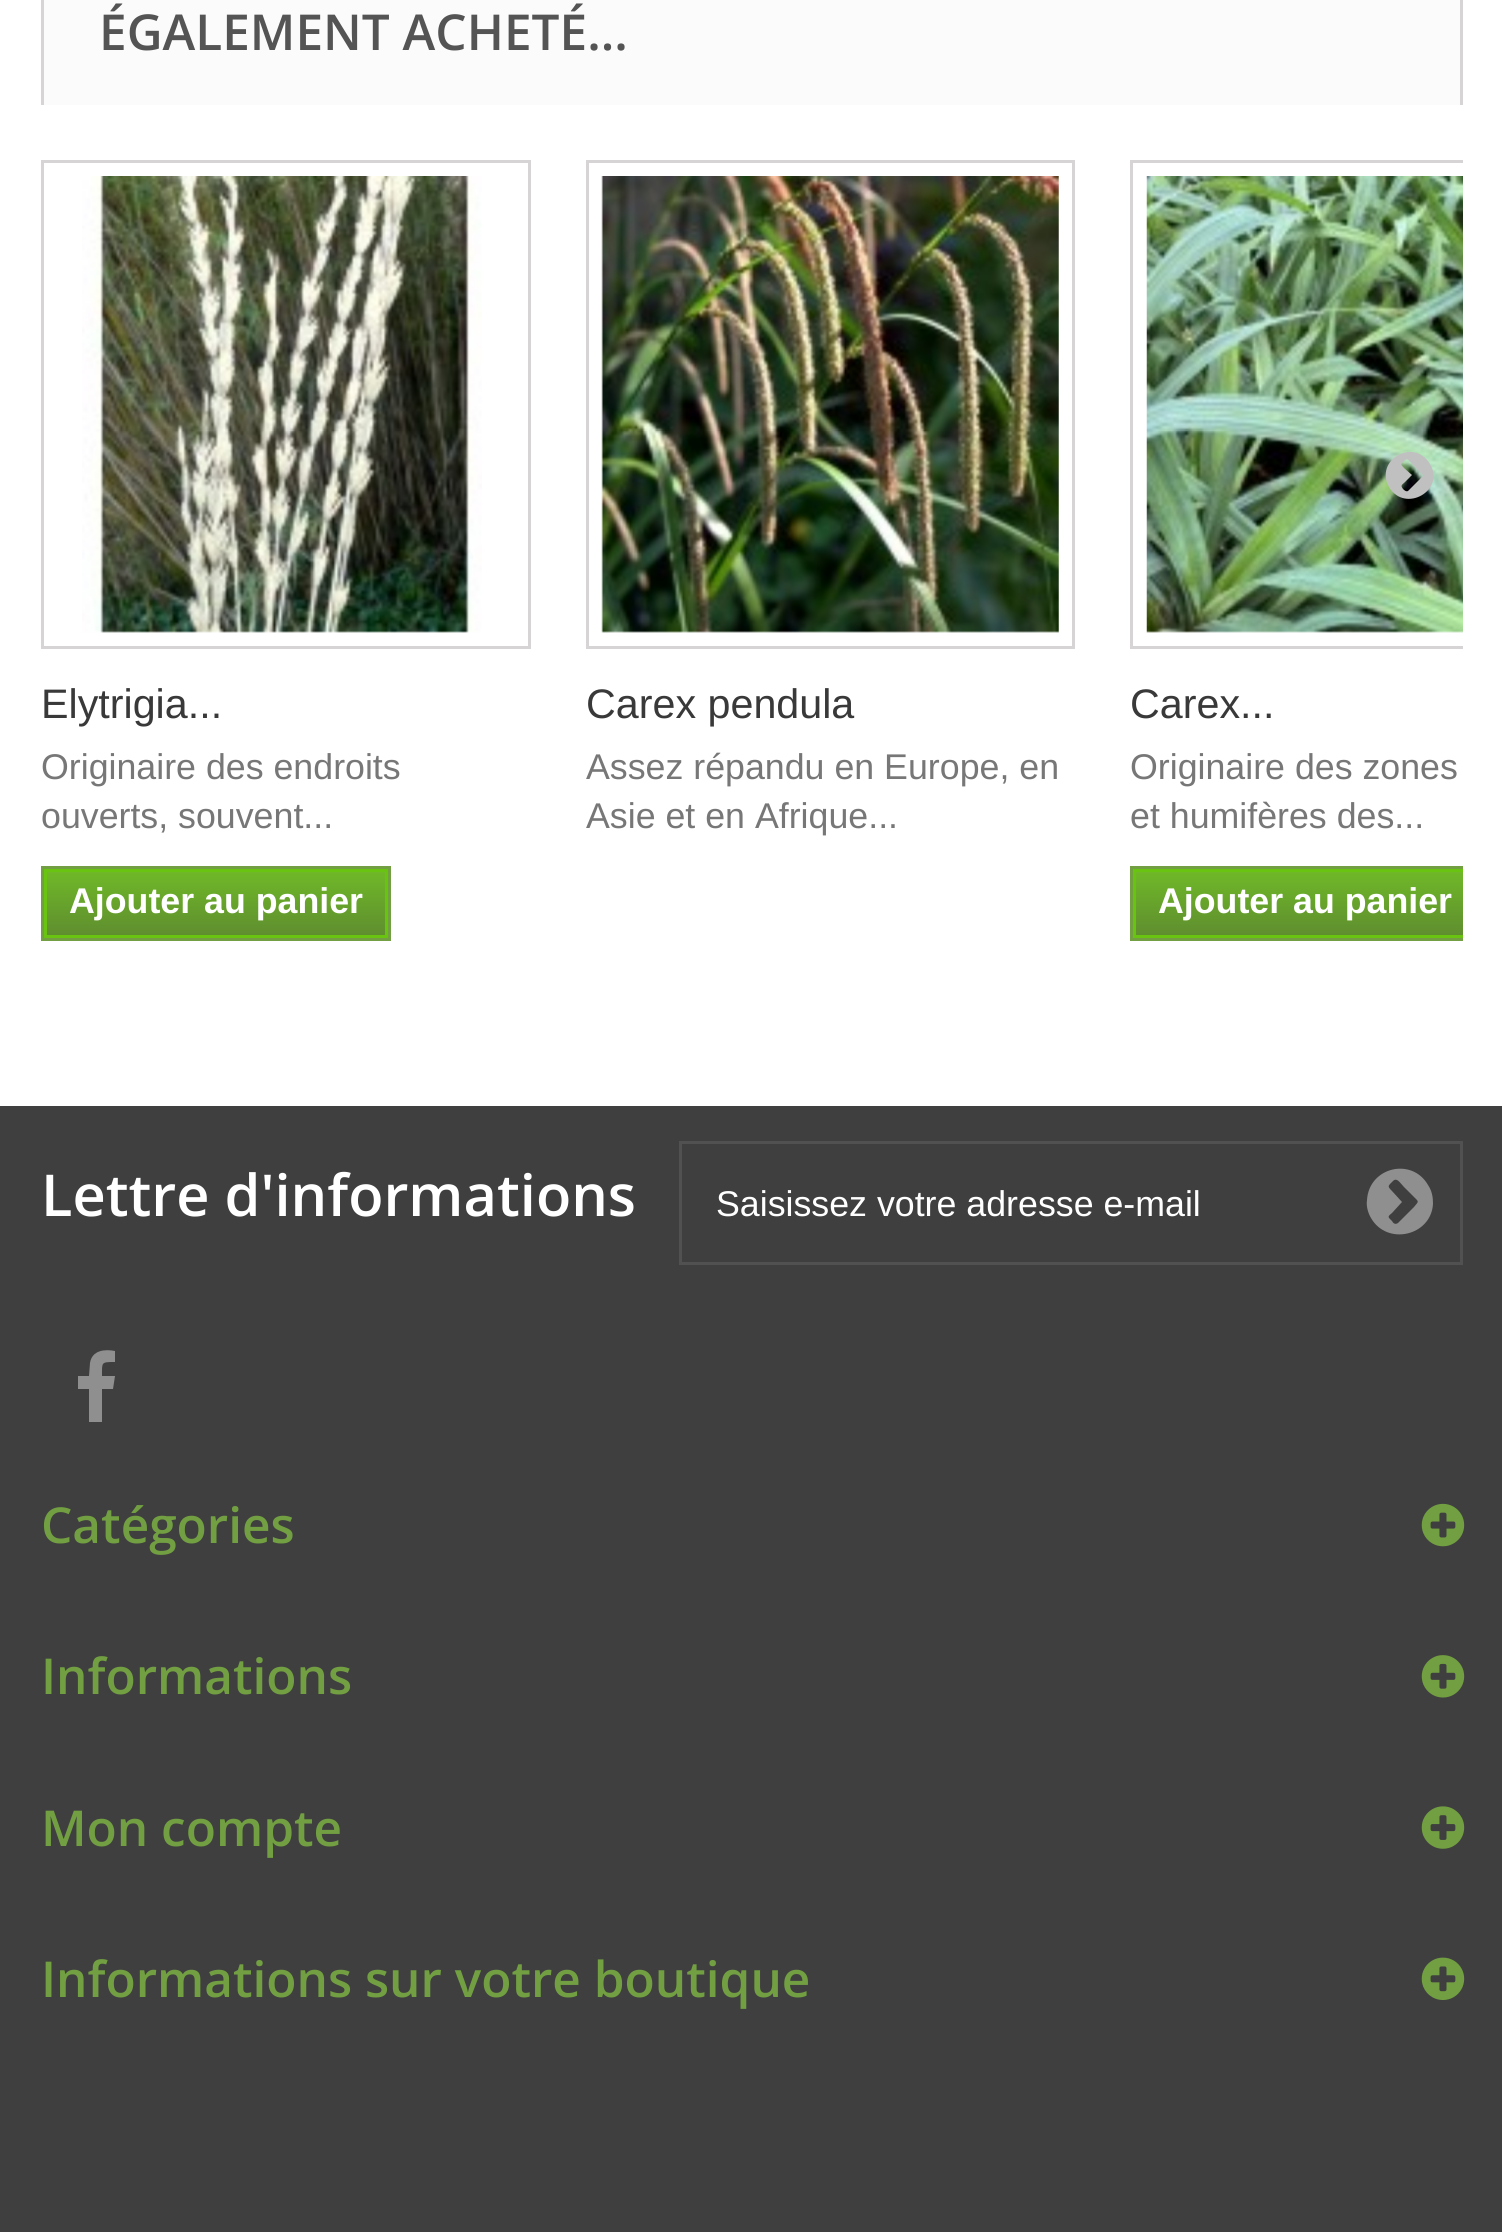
#include <cairo/cairo.h>
#include <math.h>
#include <stddef.h>

typedef struct { double x, y; const char *s; } line_t;
typedef struct { double x, y, w, h; unsigned color; } box_t;
static cairo_t *cr;

static void rgb(unsigned color)
{
	cairo_set_source_rgb(cr, (color >> 16) / 255.0, (color >> 8 & 255) / 255.0, (color & 255) / 255.0);
}

static void image(const char *path, double x, double y, double w, double h)
{
	cairo_surface_t *image = cairo_image_surface_create_from_png(path);
	cairo_save(cr);
	cairo_set_source_surface(cr, image, x, y);
	cairo_rectangle(cr, x, y, w, h);
	cairo_fill(cr);
	cairo_restore(cr);
	cairo_surface_destroy(image);
}

int main(void) {
	cairo_surface_t *surface = cairo_image_surface_create(CAIRO_FORMAT_RGB24, 1502, 2232);
	cr = cairo_create(surface);
	cairo_font_options_t *options = cairo_font_options_create();
	cairo_font_options_set_hint_metrics(options, CAIRO_HINT_METRICS_OFF);
	cairo_font_options_set_hint_style(options, CAIRO_HINT_STYLE_NONE);
	cairo_set_font_options(cr, options);
	cairo_set_miter_limit(cr, 4);
	cairo_pattern_t *gradient;
	rgb(0xffffff);
	cairo_paint(cr);
	{
		static const box_t items[] = {
			{44, 0, 1416, 105, 0xfbfbfb},
			{1460, 0, 3, 105, 0xd6d4d4},
			{41, 0, 3, 105, 0xd6d4d4},
		};
		for (size_t i = 0; i < sizeof items / sizeof *items; i++) {
			rgb(items[i].color);
			cairo_rectangle(cr, items[i].x, items[i].y, items[i].w, items[i].h);
			cairo_fill(cr);
		}
	}
	cairo_save(cr);
	cairo_rectangle(cr, 41, 160, 1422, 781);
	cairo_clip(cr);
	cairo_rectangle(cr, 1131.5, 161.5, 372, 486);
	cairo_set_line_width(cr, 3);
	cairo_stroke(cr);
	cairo_restore(cr);
	image("img/4.png", 1146, 176, 317, 457);
	rgb(0xc0c0c0);
	cairo_new_path(cr);
	cairo_move_to(cr, 1408, 491);
	cairo_line_to(cr, 1420, 479);
	cairo_curve_to(cr, 1424, 475, 1424, 476, 1420, 472);
	cairo_line_to(cr, 1413, 465);
	cairo_curve_to(cr, 1409, 461, 1408, 457, 1404, 461);
	cairo_curve_to(cr, 1401, 464, 1400, 464, 1404, 468);
	cairo_line_to(cr, 1412, 475);
	cairo_line_to(cr, 1405, 482);
	cairo_curve_to(cr, 1402, 485, 1400, 485, 1403, 489);
	cairo_curve_to(cr, 1404, 490, 1406, 492, 1408, 491);
	cairo_close_path(cr);
	cairo_move_to(cr, 1430, 464);
	cairo_curve_to(cr, 1446, 490, 1405, 514, 1389, 487);
	cairo_curve_to(cr, 1374, 460, 1414, 437, 1430, 464);
	cairo_close_path(cr);
	cairo_fill(cr);
	cairo_rectangle(cr, 42.5, 161.5, 487, 486);
	rgb(0xd6d4d4);
	cairo_set_line_width(cr, 3);
	cairo_stroke(cr);
	image("img/1.png", 82, 176, 400, 457);
	image("img/2.png", 391, 868, 1, 67);
	cairo_rectangle(cr, 42.5, 867.5, 347, 72);
	rgb(0x719f41);
	cairo_stroke(cr);
	gradient = cairo_pattern_create_linear(216, 872, 216, 935);
	cairo_pattern_add_color_stop_rgba(gradient, 0, 0.435, 0.722, 0.157, 1);
	cairo_pattern_add_color_stop_rgba(gradient, 1, 0.373, 0.557, 0.184, 1);
	cairo_set_source(cr, gradient);
	cairo_pattern_destroy(gradient);
	cairo_rectangle(cr, 47, 872, 338, 63);
	cairo_fill(cr);
	cairo_rectangle(cr, 45.5, 870.5, 341, 66);
	rgb(0x69c412);
	cairo_stroke(cr);
	cairo_rectangle(cr, 587.5, 161.5, 486, 486);
	rgb(0xd6d4d4);
	cairo_stroke(cr);
	image("img/3.png", 601, 176, 458, 457);
	cairo_save(cr);
	cairo_rectangle(cr, 41, 160, 1422, 781);
	cairo_clip(cr);
	cairo_rectangle(cr, 1131.5, 867.5, 347, 72);
	rgb(0x719f41);
	cairo_stroke(cr);
	cairo_restore(cr);
	gradient = cairo_pattern_create_linear(1305, 872, 1305, 935);
	cairo_pattern_add_color_stop_rgba(gradient, 0, 0.435, 0.722, 0.157, 1);
	cairo_pattern_add_color_stop_rgba(gradient, 1, 0.373, 0.557, 0.184, 1);
	cairo_set_source(cr, gradient);
	cairo_pattern_destroy(gradient);
	cairo_rectangle(cr, 1136, 872, 327, 63);
	cairo_fill(cr);
	cairo_save(cr);
	cairo_rectangle(cr, 41, 160, 1422, 781);
	cairo_clip(cr);
	cairo_rectangle(cr, 1134.5, 870.5, 341, 66);
	rgb(0x69c412);
	cairo_stroke(cr);
	cairo_restore(cr);
	rgb(0x3f3f3f);
	cairo_rectangle(cr, 0, 1106, 1502, 1126);
	cairo_fill(cr);
	cairo_rectangle(cr, 680.5, 1142.5, 781, 121);
	rgb(0x515151);
	cairo_stroke(cr);
	rgb(0x908f8f);
	cairo_new_path(cr);
	cairo_move_to(cr, 1398, 1223);
	cairo_line_to(cr, 1414, 1207);
	cairo_curve_to(cr, 1419, 1201, 1419, 1202, 1414, 1197);
	cairo_line_to(cr, 1404, 1187);
	cairo_curve_to(cr, 1400, 1183, 1397, 1177, 1393, 1181);
	cairo_curve_to(cr, 1388, 1186, 1387, 1186, 1392, 1191);
	cairo_line_to(cr, 1402, 1202);
	cairo_line_to(cr, 1392, 1213);
	cairo_curve_to(cr, 1387, 1217, 1388, 1217, 1392, 1221);
	cairo_curve_to(cr, 1393, 1223, 1395, 1225, 1398, 1223);
	cairo_close_path(cr);
	cairo_move_to(cr, 1428, 1185);
	cairo_curve_to(cr, 1432, 1191, 1433, 1197, 1433, 1204);
	cairo_curve_to(cr, 1431, 1236, 1387, 1246, 1371, 1218);
	cairo_curve_to(cr, 1368, 1213, 1366, 1206, 1367, 1200);
	cairo_curve_to(cr, 1369, 1167, 1412, 1157, 1428, 1185);
	cairo_close_path(cr);
	cairo_fill(cr);
	cairo_new_path(cr);
	cairo_move_to(cr, 115, 1351);
	cairo_line_to(cr, 115, 1362);
	cairo_curve_to(cr, 101, 1362, 102, 1362, 102, 1376);
	cairo_line_to(cr, 115, 1376);
	cairo_line_to(cr, 113, 1389);
	cairo_line_to(cr, 102, 1389);
	cairo_line_to(cr, 102, 1422);
	cairo_line_to(cr, 89, 1422);
	cairo_line_to(cr, 89, 1389);
	cairo_line_to(cr, 78, 1389);
	cairo_line_to(cr, 78, 1376);
	cairo_line_to(cr, 89, 1376);
	cairo_line_to(cr, 90, 1363);
	cairo_curve_to(cr, 92, 1350, 105, 1349, 115, 1351);
	cairo_close_path(cr);
	cairo_fill(cr);
	image("img/5.png", 1421, 1503, 44, 44);
	image("img/6.png", 1421, 1655, 44, 43);
	image("img/7.png", 1421, 1806, 44, 43);
	image("img/8.png", 1421, 1957, 44, 43);
	cairo_select_font_face(cr, "Open Sans SemiBold", CAIRO_FONT_SLANT_NORMAL, CAIRO_FONT_WEIGHT_NORMAL);
	cairo_set_font_size(cr, 49.5);
	rgb(0x555454);
	cairo_move_to(cr, 99, 50);
	cairo_show_text(cr, "ÉGALEMENT ACHETÉ...");
	cairo_select_font_face(cr, "Liberation Sans", CAIRO_FONT_SLANT_NORMAL, CAIRO_FONT_WEIGHT_NORMAL);
	cairo_set_font_size(cr, 41.25);
	rgb(0x3a3939);
	cairo_move_to(cr, 41, 718);
	cairo_show_text(cr, "Elytrigia...");
	cairo_set_font_size(cr, 35.75);
	rgb(0x777777);
	cairo_move_to(cr, 41, 779);
	cairo_show_text(cr, "Originaire des endroits");
	cairo_move_to(cr, 41, 828);
	cairo_show_text(cr, "ouverts, souvent...");
	cairo_select_font_face(cr, "Liberation Sans", CAIRO_FONT_SLANT_NORMAL, CAIRO_FONT_WEIGHT_BOLD);
	rgb(0xffffff);
	cairo_move_to(cr, 69, 913);
	cairo_show_text(cr, "Ajouter au panier");
	cairo_select_font_face(cr, "Liberation Sans", CAIRO_FONT_SLANT_NORMAL, CAIRO_FONT_WEIGHT_NORMAL);
	cairo_set_font_size(cr, 41.25);
	rgb(0x3a3939);
	cairo_move_to(cr, 586, 718);
	cairo_show_text(cr, "Carex pendula");
	cairo_set_font_size(cr, 35.75);
	rgb(0x777777);
	cairo_move_to(cr, 586, 779);
	cairo_show_text(cr, "Assez répandu en Europe, en");
	cairo_move_to(cr, 586, 828);
	cairo_show_text(cr, "Asie et en Afrique...");
	cairo_set_font_size(cr, 41.25);
	rgb(0x3a3939);
	cairo_move_to(cr, 1130, 718);
	cairo_show_text(cr, "Carex...");
	cairo_set_font_size(cr, 35.75);
	rgb(0x777777);
	cairo_move_to(cr, 1130, 779);
	cairo_show_text(cr, "Originaire des zones");
	cairo_move_to(cr, 1130, 828);
	cairo_show_text(cr, "et humifères des...");
	cairo_select_font_face(cr, "Liberation Sans", CAIRO_FONT_SLANT_NORMAL, CAIRO_FONT_WEIGHT_BOLD);
	rgb(0xffffff);
	cairo_move_to(cr, 1158, 913);
	cairo_show_text(cr, "Ajouter au panier");
	cairo_select_font_face(cr, "Open Sans SemiBold", CAIRO_FONT_SLANT_NORMAL, CAIRO_FONT_WEIGHT_NORMAL);
	cairo_set_font_size(cr, 57.75);
	cairo_move_to(cr, 41, 1216);
	cairo_show_text(cr, "Lettre d'informations");
	cairo_select_font_face(cr, "Liberation Sans", CAIRO_FONT_SLANT_NORMAL, CAIRO_FONT_WEIGHT_NORMAL);
	cairo_set_font_size(cr, 35.75);
	cairo_move_to(cr, 716, 1216);
	cairo_show_text(cr, "Saisissez votre adresse e-mail");
	cairo_select_font_face(cr, "Open Sans SemiBold", CAIRO_FONT_SLANT_NORMAL, CAIRO_FONT_WEIGHT_NORMAL);
	cairo_set_font_size(cr, 49.5);
	rgb(0x719f41);
	{
		static const line_t items[] = {
			{41, 1543, "Catégories"},
			{41, 1694, "Informations"},
			{41, 1846, "Mon compte"},
			{41, 1997, "Informations sur votre boutique"},
		};
		for (size_t i = 0; i < sizeof items / sizeof *items; i++) {
			cairo_move_to(cr, items[i].x, items[i].y);
			cairo_show_text(cr, items[i].s);
		}
	}
	cairo_surface_write_to_png(surface, "page.png");
	cairo_font_options_destroy(options);
	cairo_destroy(cr);
	cairo_surface_destroy(surface);
	return 0;
}
